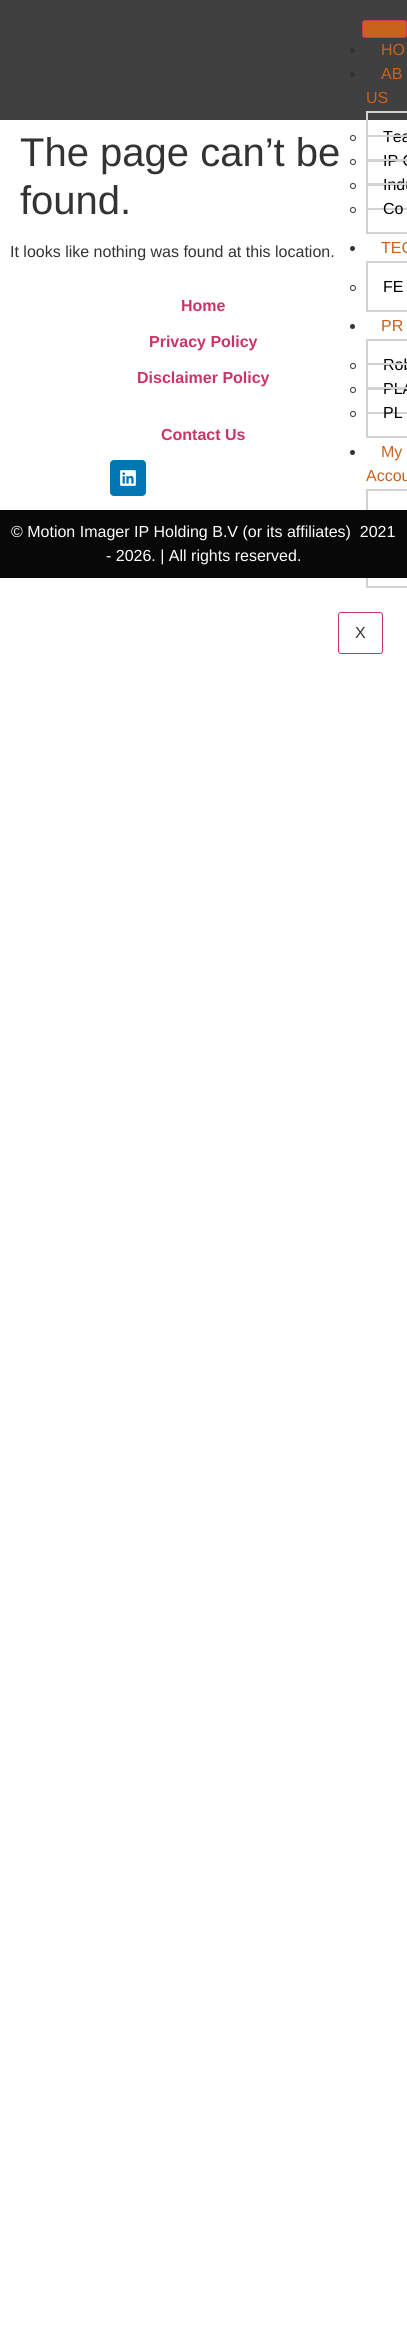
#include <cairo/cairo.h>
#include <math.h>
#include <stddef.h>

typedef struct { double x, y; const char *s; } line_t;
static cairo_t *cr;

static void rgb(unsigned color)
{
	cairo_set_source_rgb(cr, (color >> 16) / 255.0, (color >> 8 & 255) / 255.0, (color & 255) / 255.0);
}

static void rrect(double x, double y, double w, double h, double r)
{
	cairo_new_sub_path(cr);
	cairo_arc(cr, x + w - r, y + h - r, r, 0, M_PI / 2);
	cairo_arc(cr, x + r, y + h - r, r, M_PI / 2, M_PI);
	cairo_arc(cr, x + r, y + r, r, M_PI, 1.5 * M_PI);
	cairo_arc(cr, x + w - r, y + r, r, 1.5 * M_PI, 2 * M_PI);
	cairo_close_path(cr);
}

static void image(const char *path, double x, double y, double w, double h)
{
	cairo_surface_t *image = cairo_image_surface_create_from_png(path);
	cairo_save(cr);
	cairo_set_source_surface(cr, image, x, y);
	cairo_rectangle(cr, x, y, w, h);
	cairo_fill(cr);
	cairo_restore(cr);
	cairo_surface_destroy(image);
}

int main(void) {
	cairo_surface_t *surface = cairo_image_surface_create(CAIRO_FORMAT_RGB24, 407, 2326);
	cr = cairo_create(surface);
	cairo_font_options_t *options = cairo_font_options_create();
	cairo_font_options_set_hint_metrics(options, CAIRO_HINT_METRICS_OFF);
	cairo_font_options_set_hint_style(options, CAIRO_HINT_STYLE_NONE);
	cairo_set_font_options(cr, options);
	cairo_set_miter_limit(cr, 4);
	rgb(0xffffff);
	cairo_paint(cr);
	rgb(0x404040);
	cairo_rectangle(cr, 0, 0, 407, 120);
	cairo_fill(cr);
	rgb(0xc8621d);
	rrect(362.5, 20.5, 44, 17, 2.5);
	cairo_fill_preserve(cr);
	rgb(0xcc3366);
	cairo_set_line_width(cr, 1);
	cairo_stroke(cr);
	rgb(0x333333);
	cairo_arc(cr, 352.5, 50.5, 2.5, 0, 2 * M_PI);
	cairo_fill(cr);
	cairo_arc(cr, 352.5, 74.5, 2.5, 0, 2 * M_PI);
	cairo_fill(cr);
	cairo_arc(cr, 353, 138, 2.5, 0, 2 * M_PI);
	cairo_stroke(cr);
	cairo_rectangle(cr, 367, 112, 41, 49);
	rgb(0xd2d2d2);
	cairo_set_line_width(cr, 2);
	cairo_stroke(cr);
	cairo_arc(cr, 353, 162, 2.5, 0, 2 * M_PI);
	rgb(0x333333);
	cairo_set_line_width(cr, 1);
	cairo_stroke(cr);
	cairo_arc(cr, 353, 186, 2.5, 0, 2 * M_PI);
	cairo_stroke(cr);
	cairo_arc(cr, 353, 210, 2.5, 0, 2 * M_PI);
	cairo_stroke(cr);
	cairo_arc(cr, 352.5, 248.5, 2.5, 0, 2 * M_PI);
	cairo_fill(cr);
	cairo_arc(cr, 353, 288, 2.5, 0, 2 * M_PI);
	cairo_stroke(cr);
	cairo_rectangle(cr, 367, 262, 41, 49);
	rgb(0xd2d2d2);
	cairo_set_line_width(cr, 2);
	cairo_stroke(cr);
	rgb(0x333333);
	cairo_arc(cr, 352.5, 326.5, 2.5, 0, 2 * M_PI);
	cairo_fill(cr);
	cairo_arc(cr, 353, 366, 2.5, 0, 2 * M_PI);
	cairo_set_line_width(cr, 1);
	cairo_stroke(cr);
	cairo_rectangle(cr, 367, 340, 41, 49);
	rgb(0xd2d2d2);
	cairo_set_line_width(cr, 2);
	cairo_stroke(cr);
	cairo_arc(cr, 353, 390, 2.5, 0, 2 * M_PI);
	rgb(0x333333);
	cairo_set_line_width(cr, 1);
	cairo_stroke(cr);
	cairo_arc(cr, 353, 414, 2.5, 0, 2 * M_PI);
	cairo_stroke(cr);
	cairo_arc(cr, 352.5, 452.5, 2.5, 0, 2 * M_PI);
	cairo_fill(cr);
	cairo_rectangle(cr, 367, 490, 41, 49);
	rgb(0xd2d2d2);
	cairo_set_line_width(cr, 2);
	cairo_stroke(cr);
	cairo_rectangle(cr, 367, 538, 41, 49);
	cairo_stroke(cr);
	rrect(338.5, 612.5, 44, 41, 2.5);
	rgb(0xcc3366);
	cairo_set_line_width(cr, 1);
	cairo_stroke(cr);
	rgb(0x0077b5);
	rrect(110, 460, 36, 36, 4);
	cairo_fill(cr);
	image("img/1.png", 120, 470, 16, 16);
	rgb(0x080808);
	cairo_rectangle(cr, 0, 510, 407, 68);
	cairo_fill(cr);
	cairo_select_font_face(cr, "Liberation Sans", CAIRO_FONT_SLANT_NORMAL, CAIRO_FONT_WEIGHT_NORMAL);
	cairo_set_font_size(cr, 40);
	rgb(0x333333);
	cairo_move_to(cr, 20, 166);
	cairo_show_text(cr, "The page can’t be");
	cairo_move_to(cr, 20, 214);
	cairo_show_text(cr, "found.");
	cairo_set_font_size(cr, 16);
	cairo_move_to(cr, 10, 257);
	cairo_show_text(cr, "It looks like nothing was found at this location.");
	rgb(0xc8621d);
	{
		static const line_t items[] = {
			{381, 55, "HO"},
			{381, 79, "AB"},
			{366, 103, "US"},
		};
		for (size_t i = 0; i < sizeof items / sizeof *items; i++) {
			cairo_move_to(cr, items[i].x, items[i].y);
			cairo_show_text(cr, items[i].s);
		}
	}
	rgb(0x000000);
	cairo_move_to(cr, 383, 142);
	cairo_show_text(cr, "Tea");
	cairo_rectangle(cr, 367, 136, 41, 49);
	rgb(0xd2d2d2);
	cairo_set_line_width(cr, 2);
	cairo_stroke(cr);
	rgb(0x000000);
	cairo_move_to(cr, 383, 166);
	cairo_show_text(cr, "IP C");
	cairo_rectangle(cr, 367, 160, 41, 49);
	rgb(0xd2d2d2);
	cairo_stroke(cr);
	rgb(0x000000);
	cairo_move_to(cr, 383, 190);
	cairo_show_text(cr, "Indu");
	cairo_rectangle(cr, 367, 184, 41, 49);
	rgb(0xd2d2d2);
	cairo_stroke(cr);
	rgb(0x000000);
	cairo_move_to(cr, 383, 214);
	cairo_show_text(cr, "Co");
	rgb(0xc8621d);
	cairo_move_to(cr, 381, 253);
	cairo_show_text(cr, "TEC");
	rgb(0x000000);
	cairo_move_to(cr, 383, 292);
	cairo_show_text(cr, "FE");
	rgb(0xc8621d);
	cairo_move_to(cr, 381, 331);
	cairo_show_text(cr, "PR");
	rgb(0x000000);
	cairo_move_to(cr, 383, 370);
	cairo_show_text(cr, "Rob");
	cairo_rectangle(cr, 367, 364, 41, 49);
	rgb(0xd2d2d2);
	cairo_stroke(cr);
	rgb(0x000000);
	cairo_move_to(cr, 383, 394);
	cairo_show_text(cr, "PLA");
	cairo_rectangle(cr, 367, 388, 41, 49);
	rgb(0xd2d2d2);
	cairo_stroke(cr);
	rgb(0x000000);
	cairo_move_to(cr, 383, 418);
	cairo_show_text(cr, "PL");
	rgb(0xc8621d);
	cairo_move_to(cr, 381, 457);
	cairo_show_text(cr, "My");
	cairo_move_to(cr, 366, 481);
	cairo_show_text(cr, "Accou");
	rgb(0x333333);
	cairo_move_to(cr, 355, 638);
	cairo_show_text(cr, "X");
	cairo_select_font_face(cr, "Liberation Sans", CAIRO_FONT_SLANT_NORMAL, CAIRO_FONT_WEIGHT_BOLD);
	rgb(0xcc3366);
	{
		static const line_t items[] = {
			{181, 311, "Home"},
			{149, 347, "Privacy Policy"},
			{137, 383, "Disclaimer Policy"},
			{161, 440, "Contact Us"},
		};
		for (size_t i = 0; i < sizeof items / sizeof *items; i++) {
			cairo_move_to(cr, items[i].x, items[i].y);
			cairo_show_text(cr, items[i].s);
		}
	}
	cairo_select_font_face(cr, "Liberation Sans", CAIRO_FONT_SLANT_NORMAL, CAIRO_FONT_WEIGHT_NORMAL);
	rgb(0xffffff);
	cairo_move_to(cr, 11, 537);
	cairo_show_text(cr, "© Motion Imager IP Holding B.V (or its affiliates)  2021");
	cairo_move_to(cr, 106, 561);
	cairo_show_text(cr, "- 2026. | All rights reserved.");
	cairo_surface_write_to_png(surface, "page.png");
	cairo_font_options_destroy(options);
	cairo_destroy(cr);
	cairo_surface_destroy(surface);
	return 0;
}
